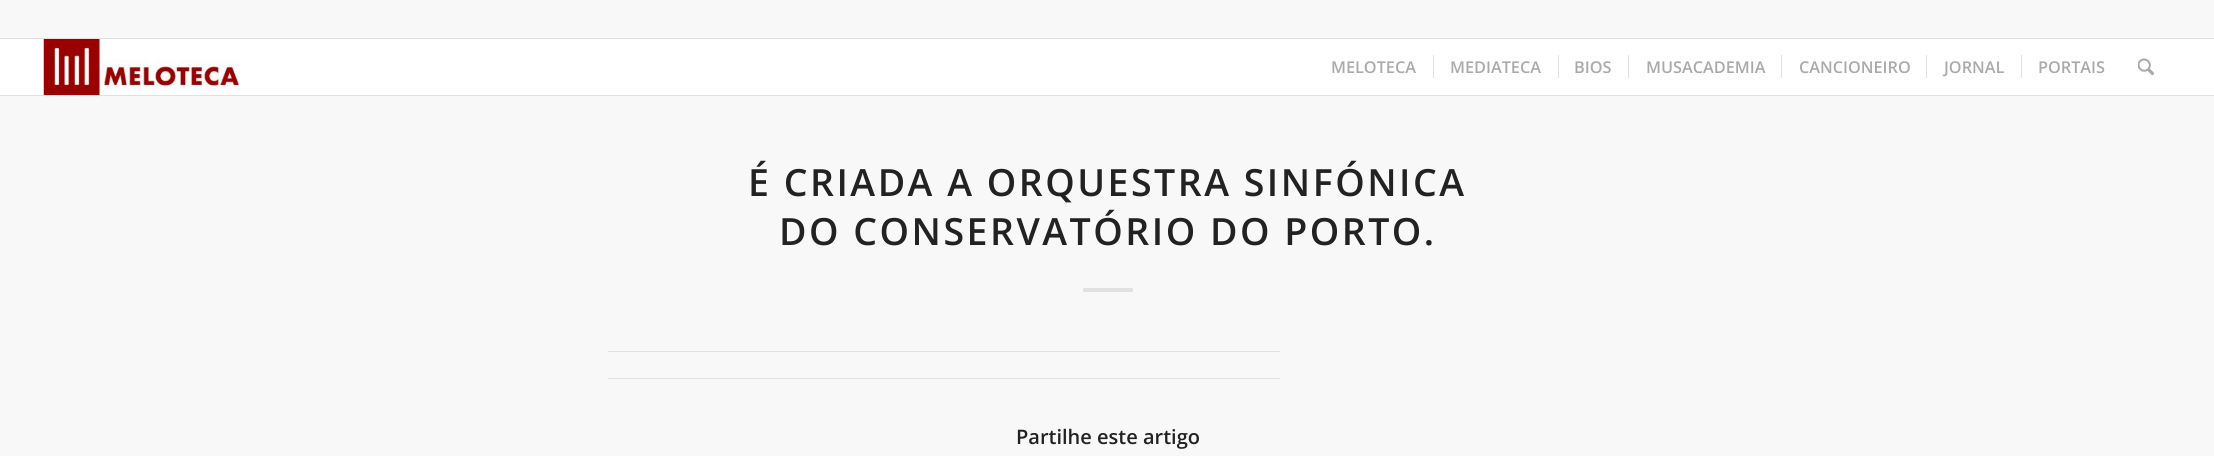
#include <cairo/cairo.h>
#include <math.h>
#include <stddef.h>

typedef struct { double x, y; const char *s; } line_t;
typedef struct { double x, y, w, h; unsigned color; } box_t;
static cairo_t *cr;

static void rgb(unsigned color)
{
	cairo_set_source_rgb(cr, (color >> 16) / 255.0, (color >> 8 & 255) / 255.0, (color & 255) / 255.0);
}

static void tracked(double x, double y, const char *s, double letter, double word)
{
	cairo_move_to(cr, x, y);
	while (*s) {
		char ch[5] = {0};
		int n = 0;
		do ch[n++] = *s++; while ((*s & 0xC0) == 0x80);
		cairo_show_text(cr, ch);
		cairo_rel_move_to(cr, letter + word * (*ch == ' '), 0);
	}
}

static void image(const char *path, double x, double y, double w, double h)
{
	cairo_surface_t *image = cairo_image_surface_create_from_png(path);
	cairo_save(cr);
	cairo_set_source_surface(cr, image, x, y);
	cairo_rectangle(cr, x, y, w, h);
	cairo_fill(cr);
	cairo_restore(cr);
	cairo_surface_destroy(image);
}

int main(void) {
	cairo_surface_t *surface = cairo_image_surface_create(CAIRO_FORMAT_RGB24, 2214, 456);
	cr = cairo_create(surface);
	cairo_font_options_t *options = cairo_font_options_create();
	cairo_font_options_set_hint_metrics(options, CAIRO_HINT_METRICS_OFF);
	cairo_font_options_set_hint_style(options, CAIRO_HINT_STYLE_NONE);
	cairo_set_font_options(cr, options);
	cairo_set_miter_limit(cr, 4);
	rgb(0xffffff);
	cairo_paint(cr);
	{
		static const box_t items[] = {
			{0, 0, 2214, 38, 0xf8f8f8},
			{0, 38, 2214, 1, 0xe1e1e1},
			{0, 95, 2214, 1, 0xe1e1e1},
		};
		for (size_t i = 0; i < sizeof items / sizeof *items; i++) {
			rgb(items[i].color);
			cairo_rectangle(cr, items[i].x, items[i].y, items[i].w, items[i].h);
			cairo_fill(cr);
		}
	}
	image("img/1.png", 43, 39, 197, 56);
	{
		static const box_t items[] = {
			{1433, 55, 1, 23, 0xe1e1e1},
			{1558, 55, 1, 23, 0xe1e1e1},
			{1628, 55, 1, 23, 0xe1e1e1},
			{1781, 55, 1, 23, 0xe1e1e1},
			{1926, 55, 1, 23, 0xe1e1e1},
			{2021, 55, 1, 23, 0xe1e1e1},
		};
		for (size_t i = 0; i < sizeof items / sizeof *items; i++) {
			rgb(items[i].color);
			cairo_rectangle(cr, items[i].x, items[i].y, items[i].w, items[i].h);
			cairo_fill(cr);
		}
	}
	image("img/2.png", 2138, 58, 17, 18);
	{
		static const box_t items[] = {
			{0, 96, 2214, 360, 0xf8f8f8},
			{1083, 288, 50, 4, 0xe1e1e1},
			{608, 351, 672, 1, 0xe1e1e1},
			{608, 378, 672, 1, 0xe1e1e1},
		};
		for (size_t i = 0; i < sizeof items / sizeof *items; i++) {
			rgb(items[i].color);
			cairo_rectangle(cr, items[i].x, items[i].y, items[i].w, items[i].h);
			cairo_fill(cr);
		}
	}
	cairo_select_font_face(cr, "Open Sans SemiBold", CAIRO_FONT_SLANT_NORMAL, CAIRO_FONT_WEIGHT_NORMAL);
	cairo_set_font_size(cr, 16.25);
	rgb(0xaaaaaa);
	{
		static const line_t items[] = {
			{1331, 73, "MELOTECA"},
			{1450, 73, "MEDIATECA"},
			{1574, 73, "BIOS"},
			{1646, 73, "MUSACADEMIA"},
			{1799, 73, "CANCIONEIRO"},
			{1944, 73, "JORNAL"},
			{2038, 73, "PORTAIS"},
		};
		for (size_t i = 0; i < sizeof items / sizeof *items; i++) {
			cairo_move_to(cr, items[i].x, items[i].y);
			cairo_show_text(cr, items[i].s);
		}
	}
	cairo_set_font_size(cr, 37.5);
	rgb(0x222222);
	tracked(748, 196, "É CRIADA A ORQUESTRA SINFÓNICA", 2.5, 0);
	tracked(779, 245, "DO CONSERVATÓRIO DO PORTO.", 2.5, 0);
	cairo_set_font_size(cr, 20);
	cairo_move_to(cr, 1016, 444);
	cairo_show_text(cr, "Partilhe este artigo");
	cairo_surface_write_to_png(surface, "page.png");
	cairo_font_options_destroy(options);
	cairo_destroy(cr);
	cairo_surface_destroy(surface);
	return 0;
}
